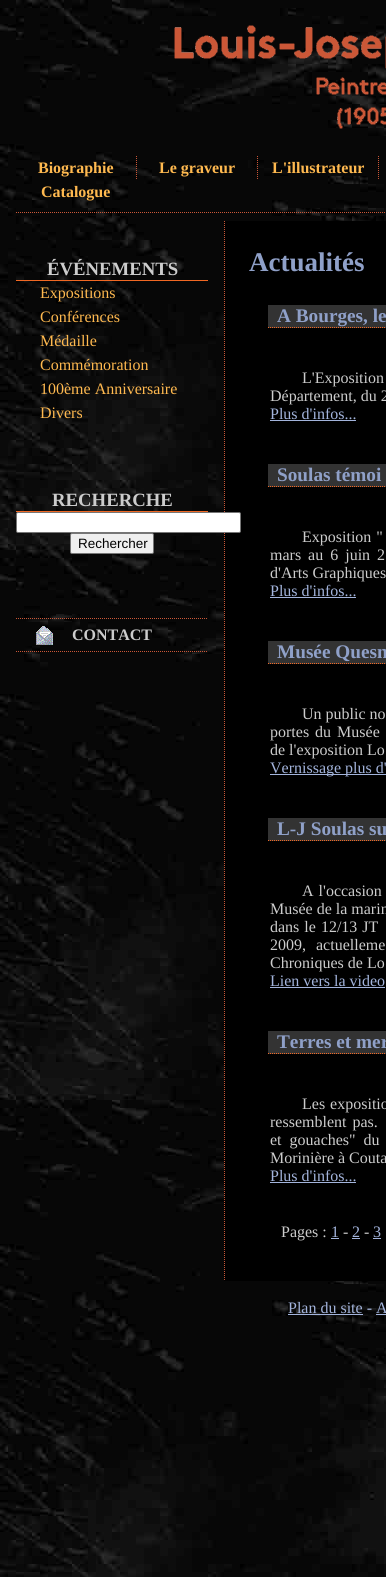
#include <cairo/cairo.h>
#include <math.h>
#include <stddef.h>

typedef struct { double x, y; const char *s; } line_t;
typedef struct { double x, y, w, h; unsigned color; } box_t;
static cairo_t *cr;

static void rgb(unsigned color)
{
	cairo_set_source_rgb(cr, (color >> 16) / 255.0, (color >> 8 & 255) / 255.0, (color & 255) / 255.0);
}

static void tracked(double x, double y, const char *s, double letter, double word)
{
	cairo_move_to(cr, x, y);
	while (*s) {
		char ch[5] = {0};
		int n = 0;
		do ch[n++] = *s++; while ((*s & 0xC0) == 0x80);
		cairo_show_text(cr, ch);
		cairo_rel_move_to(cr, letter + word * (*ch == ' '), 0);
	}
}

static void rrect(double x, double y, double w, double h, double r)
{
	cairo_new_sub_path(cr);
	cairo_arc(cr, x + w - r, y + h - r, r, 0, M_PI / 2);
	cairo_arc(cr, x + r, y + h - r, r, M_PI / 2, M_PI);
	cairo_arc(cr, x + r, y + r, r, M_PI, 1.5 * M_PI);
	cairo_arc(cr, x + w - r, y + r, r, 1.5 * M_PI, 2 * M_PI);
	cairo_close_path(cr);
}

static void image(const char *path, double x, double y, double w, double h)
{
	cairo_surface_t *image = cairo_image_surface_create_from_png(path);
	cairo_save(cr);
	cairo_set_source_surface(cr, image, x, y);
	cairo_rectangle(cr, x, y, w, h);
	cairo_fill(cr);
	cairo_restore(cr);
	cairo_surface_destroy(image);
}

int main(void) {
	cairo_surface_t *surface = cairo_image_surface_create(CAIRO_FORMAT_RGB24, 386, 1577);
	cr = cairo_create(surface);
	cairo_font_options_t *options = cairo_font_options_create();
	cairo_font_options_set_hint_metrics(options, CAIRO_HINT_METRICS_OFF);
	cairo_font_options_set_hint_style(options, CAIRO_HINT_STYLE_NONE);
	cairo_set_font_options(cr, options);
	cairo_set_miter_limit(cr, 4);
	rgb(0xffffff);
	cairo_paint(cr);
	image("img/1.png", 0, 0, 386, 1577);
	image("img/2.png", 174, 25, 212, 104);
	cairo_new_path(cr);
	cairo_move_to(cr, 16, 212.5);
	cairo_line_to(cr, 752, 212.5);
	rgb(0xcb5737);
	cairo_set_line_width(cr, 1);
	cairo_set_dash(cr, (double[]){1, 1}, 2, 0);
	cairo_stroke(cr);
	cairo_new_path(cr);
	cairo_move_to(cr, 136.5, 156);
	cairo_line_to(cr, 136.5, 180);
	cairo_stroke(cr);
	cairo_new_path(cr);
	cairo_move_to(cr, 257.5, 156);
	cairo_line_to(cr, 257.5, 180);
	cairo_stroke(cr);
	cairo_new_path(cr);
	cairo_move_to(cr, 378.5, 156);
	cairo_line_to(cr, 378.5, 180);
	cairo_stroke(cr);
	{
		static const box_t items[] = {
			{16, 280, 192, 1, 0xf16823},
			{16, 511, 192, 1, 0xf16823},
			{224, 221, 162, 1060, 0x000000},
		};
		for (size_t i = 0; i < sizeof items / sizeof *items; i++) {
			rgb(items[i].color);
			cairo_rectangle(cr, items[i].x, items[i].y, items[i].w, items[i].h);
			cairo_fill(cr);
		}
	}
	cairo_new_path(cr);
	cairo_move_to(cr, 224.5, 221);
	cairo_line_to(cr, 224.5, 1281);
	rgb(0xcb5737);
	cairo_stroke(cr);
	rgb(0xffffff);
	rrect(16.5, 512.5, 224, 20, 1.5);
	cairo_fill_preserve(cr);
	rgb(0x767676);
	cairo_set_dash(cr, NULL, 0, 0);
	cairo_stroke(cr);
	rgb(0xefefef);
	rrect(70.5, 533.5, 83, 20, 1.5);
	cairo_fill_preserve(cr);
	rgb(0x767676);
	cairo_stroke(cr);
	cairo_new_path(cr);
	cairo_move_to(cr, 16, 618.5);
	cairo_line_to(cr, 208, 618.5);
	rgb(0xcb5737);
	cairo_set_dash(cr, (double[]){1, 1}, 2, 0);
	cairo_stroke(cr);
	cairo_new_path(cr);
	cairo_move_to(cr, 16, 651.5);
	cairo_line_to(cr, 208, 651.5);
	cairo_stroke(cr);
	image("img/3.png", 36, 626, 17, 19);
	rgb(0x333333);
	cairo_rectangle(cr, 268, 305, 118, 23);
	cairo_fill(cr);
	cairo_new_path(cr);
	cairo_move_to(cr, 268, 327.5);
	cairo_line_to(cr, 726, 327.5);
	rgb(0xf16823);
	cairo_stroke(cr);
	rgb(0xa3b4dc);
	cairo_rectangle(cr, 270, 420, 86, 1);
	cairo_fill(cr);
	rgb(0x333333);
	cairo_rectangle(cr, 268, 464, 118, 23);
	cairo_fill(cr);
	cairo_new_path(cr);
	cairo_move_to(cr, 268, 486.5);
	cairo_line_to(cr, 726, 486.5);
	rgb(0xf16823);
	cairo_stroke(cr);
	rgb(0xa3b4dc);
	cairo_rectangle(cr, 270, 597, 86, 1);
	cairo_fill(cr);
	rgb(0x333333);
	cairo_rectangle(cr, 268, 641, 118, 23);
	cairo_fill(cr);
	cairo_new_path(cr);
	cairo_move_to(cr, 268, 663.5);
	cairo_line_to(cr, 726, 663.5);
	rgb(0xf16823);
	cairo_stroke(cr);
	rgb(0xa3b4dc);
	cairo_rectangle(cr, 270, 774, 116, 1);
	cairo_fill(cr);
	rgb(0x333333);
	cairo_rectangle(cr, 268, 818, 118, 23);
	cairo_fill(cr);
	cairo_new_path(cr);
	cairo_move_to(cr, 268, 840.5);
	cairo_line_to(cr, 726, 840.5);
	rgb(0xf16823);
	cairo_stroke(cr);
	rgb(0xa3b4dc);
	cairo_rectangle(cr, 270, 987, 115, 1);
	cairo_fill(cr);
	rgb(0x333333);
	cairo_rectangle(cr, 268, 1031, 118, 23);
	cairo_fill(cr);
	cairo_new_path(cr);
	cairo_move_to(cr, 268, 1053.5);
	cairo_line_to(cr, 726, 1053.5);
	rgb(0xf16823);
	cairo_stroke(cr);
	{
		static const box_t items[] = {
			{270, 1182, 86, 1, 0xa3b4dc},
			{331, 1238, 8, 1, 0xa3b4dc},
			{352, 1238, 8, 1, 0xa3b4dc},
			{373, 1238, 8, 1, 0xa3b4dc},
			{288, 1314, 75, 1, 0xa3b4dc},
			{376, 1314, 10, 1, 0xa3b4dc},
		};
		for (size_t i = 0; i < sizeof items / sizeof *items; i++) {
			rgb(items[i].color);
			cairo_rectangle(cr, items[i].x, items[i].y, items[i].w, items[i].h);
			cairo_fill(cr);
		}
	}
	cairo_select_font_face(cr, "Liberation Serif", CAIRO_FONT_SLANT_NORMAL, CAIRO_FONT_WEIGHT_BOLD);
	cairo_set_font_size(cr, 16);
	rgb(0xffb94f);
	{
		static const line_t items[] = {
			{38, 173, "Biographie"},
			{159, 173, "Le graveur"},
			{272, 173, "L'illustrateur"},
			{41, 197, "Catalogue"},
		};
		for (size_t i = 0; i < sizeof items / sizeof *items; i++) {
			cairo_move_to(cr, items[i].x, items[i].y);
			cairo_show_text(cr, items[i].s);
		}
	}
	cairo_set_font_size(cr, 18.75);
	rgb(0xcccccc);
	cairo_move_to(cr, 47, 275);
	cairo_show_text(cr, "ÉVÉNEMENTS");
	cairo_select_font_face(cr, "Liberation Serif", CAIRO_FONT_SLANT_NORMAL, CAIRO_FONT_WEIGHT_NORMAL);
	cairo_set_font_size(cr, 16);
	rgb(0xffb94f);
	{
		static const line_t items[] = {
			{40, 298, "Expositions"},
			{40, 322, "Conférences"},
			{40, 346, "Médaille"},
			{40, 370, "Commémoration"},
			{40, 394, "100ème Anniversaire"},
			{40, 418, "Divers"},
		};
		for (size_t i = 0; i < sizeof items / sizeof *items; i++) {
			cairo_move_to(cr, items[i].x, items[i].y);
			cairo_show_text(cr, items[i].s);
		}
	}
	cairo_select_font_face(cr, "Liberation Serif", CAIRO_FONT_SLANT_NORMAL, CAIRO_FONT_WEIGHT_BOLD);
	cairo_set_font_size(cr, 18.75);
	rgb(0xcccccc);
	cairo_move_to(cr, 52, 506);
	cairo_show_text(cr, "RECHERCHE");
	cairo_select_font_face(cr, "Liberation Sans", CAIRO_FONT_SLANT_NORMAL, CAIRO_FONT_WEIGHT_NORMAL);
	cairo_set_font_size(cr, 13.5);
	rgb(0x000000);
	cairo_move_to(cr, 78, 548);
	cairo_show_text(cr, "Rechercher");
	cairo_select_font_face(cr, "Liberation Serif", CAIRO_FONT_SLANT_NORMAL, CAIRO_FONT_WEIGHT_BOLD);
	cairo_set_font_size(cr, 16);
	rgb(0xcccccc);
	cairo_move_to(cr, 72, 640);
	cairo_show_text(cr, "CONTACT");
	cairo_set_font_size(cr, 27);
	rgb(0x8fa0c8);
	cairo_move_to(cr, 249, 271);
	cairo_show_text(cr, "Actualités");
	cairo_set_font_size(cr, 19.25);
	cairo_move_to(cr, 277, 322);
	cairo_show_text(cr, "A Bourges, le");
	cairo_select_font_face(cr, "Liberation Serif", CAIRO_FONT_SLANT_NORMAL, CAIRO_FONT_WEIGHT_NORMAL);
	cairo_set_font_size(cr, 16);
	rgb(0xcccccc);
	tracked(302, 383, "L'Exposition", 0, 12);
	cairo_move_to(cr, 270, 401);
	cairo_show_text(cr, "Département, du 2");
	rgb(0xa3b4dc);
	cairo_move_to(cr, 270, 419);
	cairo_show_text(cr, "Plus d'infos...");
	cairo_select_font_face(cr, "Liberation Serif", CAIRO_FONT_SLANT_NORMAL, CAIRO_FONT_WEIGHT_BOLD);
	cairo_set_font_size(cr, 19.25);
	rgb(0x8fa0c8);
	cairo_move_to(cr, 277, 481);
	cairo_show_text(cr, "Soulas témoi");
	cairo_select_font_face(cr, "Liberation Serif", CAIRO_FONT_SLANT_NORMAL, CAIRO_FONT_WEIGHT_NORMAL);
	cairo_set_font_size(cr, 16);
	rgb(0xcccccc);
	tracked(302, 542, "Exposition \"", 0, 1);
	tracked(270, 560, "mars au 6 juin 2", 0, 3);
	cairo_move_to(cr, 270, 578);
	cairo_show_text(cr, "d'Arts Graphiques");
	rgb(0xa3b4dc);
	cairo_move_to(cr, 270, 596);
	cairo_show_text(cr, "Plus d'infos...");
	cairo_select_font_face(cr, "Liberation Serif", CAIRO_FONT_SLANT_NORMAL, CAIRO_FONT_WEIGHT_BOLD);
	cairo_set_font_size(cr, 19.25);
	rgb(0x8fa0c8);
	cairo_move_to(cr, 277, 658);
	cairo_show_text(cr, "Musée Quesn");
	cairo_select_font_face(cr, "Liberation Serif", CAIRO_FONT_SLANT_NORMAL, CAIRO_FONT_WEIGHT_NORMAL);
	cairo_set_font_size(cr, 16);
	rgb(0xcccccc);
	cairo_move_to(cr, 302, 719);
	cairo_show_text(cr, "Un public no");
	tracked(270, 737, "portes du Musée", 0, 2);
	cairo_move_to(cr, 270, 755);
	cairo_show_text(cr, "de l'exposition Lo");
	rgb(0xa3b4dc);
	cairo_move_to(cr, 270, 773);
	cairo_show_text(cr, "Vernissage plus d'");
	cairo_select_font_face(cr, "Liberation Serif", CAIRO_FONT_SLANT_NORMAL, CAIRO_FONT_WEIGHT_BOLD);
	cairo_set_font_size(cr, 19.25);
	rgb(0x8fa0c8);
	cairo_move_to(cr, 277, 835);
	cairo_show_text(cr, "L-J Soulas su");
	cairo_select_font_face(cr, "Liberation Serif", CAIRO_FONT_SLANT_NORMAL, CAIRO_FONT_WEIGHT_NORMAL);
	cairo_set_font_size(cr, 16);
	rgb(0xcccccc);
	tracked(302, 896, "A l'occasion", 0, 1);
	cairo_move_to(cr, 270, 914);
	cairo_show_text(cr, "Musée de la marin");
	tracked(270, 932, "dans le 12/13 JT", 0, 1);
	tracked(270, 950, "2009, actuelleme", 0, 6);
	cairo_move_to(cr, 270, 968);
	cairo_show_text(cr, "Chroniques de Lo");
	rgb(0xa3b4dc);
	cairo_move_to(cr, 270, 986);
	cairo_show_text(cr, "Lien vers la video");
	cairo_select_font_face(cr, "Liberation Serif", CAIRO_FONT_SLANT_NORMAL, CAIRO_FONT_WEIGHT_BOLD);
	cairo_set_font_size(cr, 19.25);
	rgb(0x8fa0c8);
	cairo_move_to(cr, 277, 1048);
	cairo_show_text(cr, "Terres et mer");
	cairo_select_font_face(cr, "Liberation Serif", CAIRO_FONT_SLANT_NORMAL, CAIRO_FONT_WEIGHT_NORMAL);
	cairo_set_font_size(cr, 16);
	rgb(0xcccccc);
	tracked(302, 1109, "Les expositio", 0, 1);
	tracked(270, 1127, "ressemblent pas.", 0, 2);
	tracked(270, 1145, "et gouaches\" du", 0, 4);
	cairo_move_to(cr, 270, 1163);
	cairo_show_text(cr, "Morinière à Couta");
	rgb(0xa3b4dc);
	cairo_move_to(cr, 270, 1181);
	cairo_show_text(cr, "Plus d'infos...");
	rgb(0xcccccc);
	cairo_move_to(cr, 281, 1237);
	cairo_show_text(cr, "Pages :");
	rgb(0xa3b4dc);
	cairo_move_to(cr, 331, 1237);
	cairo_show_text(cr, "1");
	rgb(0xcccccc);
	cairo_move_to(cr, 343, 1237);
	cairo_show_text(cr, "-");
	rgb(0xa3b4dc);
	cairo_move_to(cr, 352, 1237);
	cairo_show_text(cr, "2");
	rgb(0xcccccc);
	cairo_move_to(cr, 364, 1237);
	cairo_show_text(cr, "-");
	rgb(0xa3b4dc);
	cairo_move_to(cr, 373, 1237);
	cairo_show_text(cr, "3");
	cairo_move_to(cr, 288, 1313);
	cairo_show_text(cr, "Plan du site - A");
	cairo_surface_write_to_png(surface, "page.png");
	cairo_font_options_destroy(options);
	cairo_destroy(cr);
	cairo_surface_destroy(surface);
	return 0;
}
